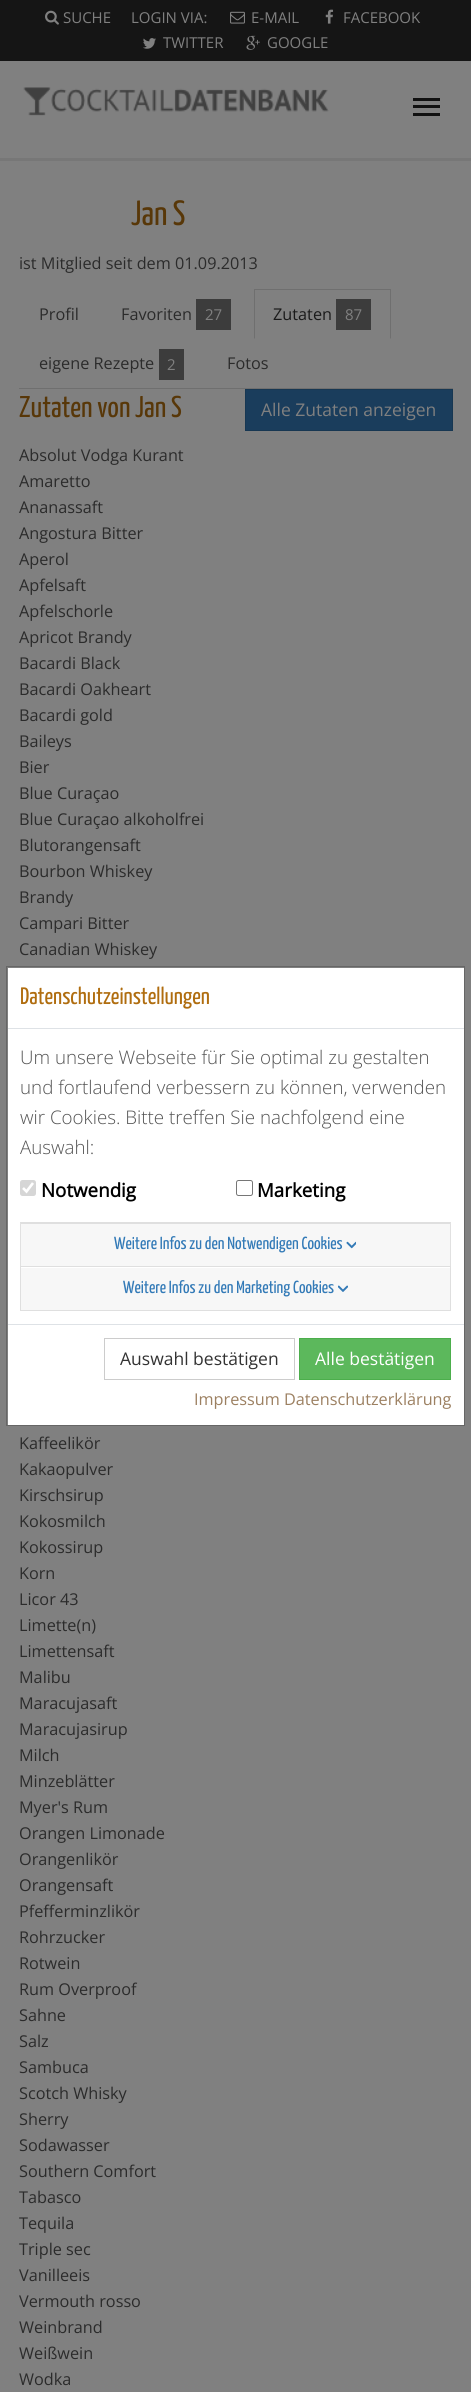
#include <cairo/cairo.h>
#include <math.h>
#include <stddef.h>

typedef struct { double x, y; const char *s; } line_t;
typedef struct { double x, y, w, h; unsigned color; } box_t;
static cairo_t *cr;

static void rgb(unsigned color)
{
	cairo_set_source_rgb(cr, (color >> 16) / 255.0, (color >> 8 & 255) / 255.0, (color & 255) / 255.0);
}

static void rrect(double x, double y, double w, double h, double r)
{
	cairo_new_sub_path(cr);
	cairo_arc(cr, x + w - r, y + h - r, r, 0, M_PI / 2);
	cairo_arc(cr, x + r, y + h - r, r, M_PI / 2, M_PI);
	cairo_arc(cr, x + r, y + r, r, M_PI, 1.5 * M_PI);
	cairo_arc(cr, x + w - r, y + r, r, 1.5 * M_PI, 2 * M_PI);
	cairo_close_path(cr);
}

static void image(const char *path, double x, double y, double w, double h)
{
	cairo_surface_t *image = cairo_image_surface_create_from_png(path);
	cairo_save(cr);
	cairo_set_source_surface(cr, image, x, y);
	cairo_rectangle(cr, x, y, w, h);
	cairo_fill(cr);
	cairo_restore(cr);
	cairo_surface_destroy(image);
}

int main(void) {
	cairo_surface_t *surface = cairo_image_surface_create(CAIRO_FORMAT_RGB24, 471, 2392);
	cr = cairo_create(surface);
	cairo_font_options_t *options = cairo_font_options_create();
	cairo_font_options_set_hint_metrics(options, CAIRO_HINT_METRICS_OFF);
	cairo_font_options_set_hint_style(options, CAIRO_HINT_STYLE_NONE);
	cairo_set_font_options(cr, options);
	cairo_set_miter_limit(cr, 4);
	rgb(0x808080);
	cairo_paint(cr);
	rgb(0x777777);
	cairo_rectangle(cr, 0, 158, 471, 3);
	cairo_fill(cr);
	rgb(0x151515);
	cairo_rectangle(cr, 0, 0, 471, 61);
	cairo_fill(cr);
	image("img/1.png", 45, 10, 14, 15);
	image("img/2.png", 230, 11, 15, 13);
	image("img/3.png", 325, 9, 9, 15);
	image("img/4.png", 143, 38, 13, 11);
	image("img/5.png", 246, 35, 14, 15);
	image("img/6.png", 23, 87, 306, 29);
	{
		static const box_t items[] = {
			{413, 98, 27, 3, 0x111111},
			{413, 105, 27, 3, 0x111111},
			{413, 113, 27, 3, 0x111111},
			{19, 388, 434, 1, 0x6f6f6f},
			{196, 299, 35, 31, 0x3c3c3c},
			{254, 289, 137, 1, 0x6f6f6f},
		};
		for (size_t i = 0; i < sizeof items / sizeof *items; i++) {
			rgb(items[i].color);
			cairo_rectangle(cr, items[i].x, items[i].y, items[i].w, items[i].h);
			cairo_fill(cr);
		}
	}
	cairo_new_path(cr);
	cairo_move_to(cr, 391, 289);
	cairo_line_to(cr, 391, 339);
	cairo_line_to(cr, 390, 338);
	cairo_line_to(cr, 390, 290);
	cairo_close_path(cr);
	cairo_fill(cr);
	cairo_new_path(cr);
	cairo_move_to(cr, 254, 339);
	cairo_line_to(cr, 254, 289);
	cairo_line_to(cr, 255, 290);
	cairo_line_to(cr, 255, 338);
	cairo_close_path(cr);
	cairo_fill(cr);
	rgb(0x3c3c3c);
	cairo_rectangle(cr, 336, 299, 35, 31);
	cairo_fill(cr);
	cairo_rectangle(cr, 159, 349, 25, 31);
	cairo_fill(cr);
	rgb(0x1a3d5c);
	cairo_rectangle(cr, 245.5, 389.5, 207, 41);
	cairo_fill_preserve(cr);
	rgb(0x173752);
	cairo_set_line_width(cr, 1);
	cairo_stroke(cr);
	rgb(0xffffff);
	cairo_rectangle(cr, 8, 968, 456, 457);
	cairo_fill(cr);
	cairo_rectangle(cr, 6.5, 966.5, 458, 459);
	rgb(0x666666);
	cairo_stroke(cr);
	rgb(0xdee2e6);
	cairo_rectangle(cr, 8, 1028, 456, 1);
	cairo_fill(cr);
	rgb(0xd6d6d6);
	rrect(20, 1180, 16, 16, 2.5);
	cairo_fill(cr);
	cairo_new_path(cr);
	cairo_move_to(cr, 23, 1188);
	cairo_line_to(cr, 26.5, 1191.5);
	cairo_line_to(cr, 33, 1183);
	rgb(0xffffff);
	cairo_set_line_width(cr, 2.6);
	cairo_stroke(cr);
	rrect(236.5, 1180.5, 16, 15, 2);
	rgb(0x767676);
	cairo_set_line_width(cr, 1);
	cairo_stroke(cr);
	rgb(0xdfdfdf);
	cairo_new_path(cr);
	cairo_move_to(cr, 20, 1222);
	cairo_line_to(cr, 451, 1222);
	cairo_line_to(cr, 450, 1224);
	cairo_line_to(cr, 21, 1224);
	cairo_close_path(cr);
	cairo_fill(cr);
	cairo_set_source_rgba(cr, 0, 0, 0, 0.12);
	cairo_new_path(cr);
	cairo_move_to(cr, 451, 1222);
	cairo_line_to(cr, 451, 1266);
	cairo_line_to(cr, 450, 1266);
	cairo_line_to(cr, 450, 1224);
	cairo_close_path(cr);
	cairo_fill(cr);
	cairo_new_path(cr);
	cairo_move_to(cr, 20, 1266);
	cairo_line_to(cr, 20, 1222);
	cairo_line_to(cr, 21, 1224);
	cairo_line_to(cr, 21, 1266);
	cairo_close_path(cr);
	cairo_fill(cr);
	rgb(0xf7f7f7);
	cairo_rectangle(cr, 21, 1224, 429, 42);
	cairo_fill(cr);
	image("img/7.png", 346, 1241, 10, 8);
	cairo_rectangle(cr, 20.5, 1266.5, 430, 44);
	rgb(0xdfdfdf);
	cairo_stroke(cr);
	rgb(0xf7f7f7);
	cairo_rectangle(cr, 21, 1268, 429, 42);
	cairo_fill(cr);
	image("img/8.png", 338, 1285, 10, 7);
	rgb(0xdee2e6);
	cairo_rectangle(cr, 8, 1324, 456, 1);
	cairo_fill(cr);
	cairo_rectangle(cr, 104.5, 1338.5, 190, 41);
	rgb(0xcccccc);
	cairo_stroke(cr);
	rgb(0x5cb85c);
	cairo_rectangle(cr, 299.5, 1338.5, 151, 41);
	cairo_fill_preserve(cr);
	rgb(0x4cae4c);
	cairo_stroke(cr);
	cairo_select_font_face(cr, "Open Sans", CAIRO_FONT_SLANT_NORMAL, CAIRO_FONT_WEIGHT_NORMAL);
	cairo_set_font_size(cr, 15);
	rgb(0x808080);
	{
		static const line_t items[] = {
			{63, 23, "SUCHE"},
			{131, 23, "LOGIN VIA:"},
			{251, 23, "E-MAIL"},
			{343, 23, "FACEBOOK"},
			{163, 48, "TWITTER"},
			{267, 48, "GOOGLE"},
		};
		for (size_t i = 0; i < sizeof items / sizeof *items; i++) {
			cairo_move_to(cr, items[i].x, items[i].y);
			cairo_show_text(cr, items[i].s);
		}
	}
	cairo_select_font_face(cr, "Yanone Kaffeesatz", CAIRO_FONT_SLANT_NORMAL, CAIRO_FONT_WEIGHT_NORMAL);
	cairo_set_font_size(cr, 35);
	rgb(0x583708);
	cairo_move_to(cr, 131, 225);
	cairo_show_text(cr, "Jan S");
	cairo_select_font_face(cr, "Open Sans", CAIRO_FONT_SLANT_NORMAL, CAIRO_FONT_WEIGHT_NORMAL);
	cairo_set_font_size(cr, 16.25);
	rgb(0x2b2b2b);
	{
		static const line_t items[] = {
			{19, 269, "ist Mitglied seit dem 01.09.2013"},
			{39, 320, "Profil"},
			{121, 320, "Favoriten"},
		};
		for (size_t i = 0; i < sizeof items / sizeof *items; i++) {
			cairo_move_to(cr, items[i].x, items[i].y);
			cairo_show_text(cr, items[i].s);
		}
	}
	cairo_set_font_size(cr, 15);
	rgb(0x808080);
	cairo_move_to(cr, 205, 320);
	cairo_show_text(cr, "27");
	cairo_set_font_size(cr, 16.25);
	rgb(0x1a1a1a);
	cairo_move_to(cr, 273, 320);
	cairo_show_text(cr, "Zutaten");
	cairo_set_font_size(cr, 15);
	rgb(0x808080);
	cairo_move_to(cr, 345, 320);
	cairo_show_text(cr, "87");
	cairo_set_font_size(cr, 16.25);
	rgb(0x2b2b2b);
	cairo_move_to(cr, 39, 369);
	cairo_show_text(cr, "eigene Rezepte");
	cairo_set_font_size(cr, 15);
	rgb(0x808080);
	cairo_move_to(cr, 167, 370);
	cairo_show_text(cr, "2");
	cairo_set_font_size(cr, 16.25);
	rgb(0x2b2b2b);
	cairo_move_to(cr, 227, 369);
	cairo_show_text(cr, "Fotos");
	cairo_select_font_face(cr, "Yanone Kaffeesatz", CAIRO_FONT_SLANT_NORMAL, CAIRO_FONT_WEIGHT_NORMAL);
	cairo_set_font_size(cr, 30);
	rgb(0x583708);
	cairo_move_to(cr, 19, 417);
	cairo_show_text(cr, "Zutaten von Jan S");
	cairo_select_font_face(cr, "Open Sans", CAIRO_FONT_SLANT_NORMAL, CAIRO_FONT_WEIGHT_NORMAL);
	cairo_set_font_size(cr, 17.5);
	rgb(0x808080);
	cairo_move_to(cr, 261, 416);
	cairo_show_text(cr, "Alle Zutaten anzeigen");
	cairo_set_font_size(cr, 16.25);
	rgb(0x2b2b2b);
	{
		static const line_t items[] = {
			{19, 461, "Absolut Vodga Kurant"},
			{19, 487, "Amaretto"},
			{19, 513, "Ananassaft"},
			{19, 539, "Angostura Bitter"},
			{19, 565, "Aperol"},
			{19, 591, "Apfelsaft"},
			{19, 617, "Apfelschorle"},
			{19, 643, "Apricot Brandy"},
			{19, 669, "Bacardi Black"},
			{19, 695, "Bacardi Oakheart"},
			{19, 721, "Bacardi gold"},
			{19, 747, "Baileys"},
			{19, 773, "Bier"},
			{19, 799, "Blue Curaçao"},
			{19, 825, "Blue Curaçao alkoholfrei"},
			{19, 851, "Blutorangensaft"},
			{19, 877, "Bourbon Whiskey"},
			{19, 903, "Brandy"},
			{19, 929, "Campari Bitter"},
			{19, 955, "Canadian Whiskey"},
			{19, 1449, "Kaffeelikör"},
			{19, 1475, "Kakaopulver"},
			{19, 1501, "Kirschsirup"},
			{19, 1527, "Kokosmilch"},
			{19, 1553, "Kokossirup"},
			{19, 1579, "Korn"},
			{19, 1605, "Licor 43"},
			{19, 1631, "Limette(n)"},
			{19, 1657, "Limettensaft"},
			{19, 1683, "Malibu"},
			{19, 1709, "Maracujasaft"},
			{19, 1735, "Maracujasirup"},
			{19, 1761, "Milch"},
			{19, 1787, "Minzeblätter"},
			{19, 1813, "Myer's Rum"},
			{19, 1839, "Orangen Limonade"},
			{19, 1865, "Orangenlikör"},
			{19, 1891, "Orangensaft"},
			{19, 1917, "Pfefferminzlikör"},
			{19, 1943, "Rohrzucker"},
			{19, 1969, "Rotwein"},
			{19, 1995, "Rum Overproof"},
			{19, 2021, "Sahne"},
			{19, 2047, "Salz"},
			{19, 2073, "Sambuca"},
			{19, 2099, "Scotch Whisky"},
			{19, 2125, "Sherry"},
			{19, 2151, "Sodawasser"},
			{19, 2177, "Southern Comfort"},
			{19, 2203, "Tabasco"},
			{19, 2229, "Tequila"},
			{19, 2255, "Triple sec"},
			{19, 2281, "Vanilleeis"},
			{19, 2307, "Vermouth rosso"},
			{19, 2333, "Weinbrand"},
			{19, 2359, "Weißwein"},
			{19, 2385, "Wodka"},
		};
		for (size_t i = 0; i < sizeof items / sizeof *items; i++) {
			cairo_move_to(cr, items[i].x, items[i].y);
			cairo_show_text(cr, items[i].s);
		}
	}
	cairo_select_font_face(cr, "Yanone Kaffeesatz", CAIRO_FONT_SLANT_NORMAL, CAIRO_FONT_WEIGHT_NORMAL);
	cairo_set_font_size(cr, 23.75);
	rgb(0xb06d0f);
	cairo_move_to(cr, 20, 1004);
	cairo_show_text(cr, "Datenschutzeinstellungen");
	cairo_select_font_face(cr, "Open Sans Light", CAIRO_FONT_SLANT_NORMAL, CAIRO_FONT_WEIGHT_NORMAL);
	cairo_set_font_size(cr, 18.75);
	rgb(0x555555);
	{
		static const line_t items[] = {
			{20, 1064, "Um unsere Webseite für Sie optimal zu gestalten"},
			{20, 1094, "und fortlaufend verbessern zu können, verwenden"},
			{20, 1124, "wir Cookies. Bitte treffen Sie nachfolgend eine"},
			{20, 1154, "Auswahl:"},
		};
		for (size_t i = 0; i < sizeof items / sizeof *items; i++) {
			cairo_move_to(cr, items[i].x, items[i].y);
			cairo_show_text(cr, items[i].s);
		}
	}
	cairo_select_font_face(cr, "Open Sans", CAIRO_FONT_SLANT_NORMAL, CAIRO_FONT_WEIGHT_BOLD);
	rgb(0x000000);
	cairo_move_to(cr, 41, 1197);
	cairo_show_text(cr, "Notwendig");
	cairo_move_to(cr, 257, 1197);
	cairo_show_text(cr, "Marketing");
	cairo_select_font_face(cr, "Yanone Kaffeesatz", CAIRO_FONT_SLANT_NORMAL, CAIRO_FONT_WEIGHT_NORMAL);
	cairo_set_font_size(cr, 17.5);
	rgb(0x337ab7);
	cairo_move_to(cr, 114, 1249);
	cairo_show_text(cr, "Weitere Infos zu den Notwendigen Cookies");
	cairo_move_to(cr, 123, 1293);
	cairo_show_text(cr, "Weitere Infos zu den Marketing Cookies");
	cairo_select_font_face(cr, "Open Sans", CAIRO_FONT_SLANT_NORMAL, CAIRO_FONT_WEIGHT_NORMAL);
	rgb(0x333333);
	cairo_move_to(cr, 120, 1365);
	cairo_show_text(cr, "Auswahl bestätigen");
	rgb(0xffffff);
	cairo_move_to(cr, 315, 1365);
	cairo_show_text(cr, "Alle bestätigen");
	cairo_set_font_size(cr, 16.25);
	rgb(0x9c8061);
	cairo_move_to(cr, 194, 1405);
	cairo_show_text(cr, "Impressum Datenschutzerklärung");
	cairo_surface_write_to_png(surface, "page.png");
	cairo_font_options_destroy(options);
	cairo_destroy(cr);
	cairo_surface_destroy(surface);
	return 0;
}
